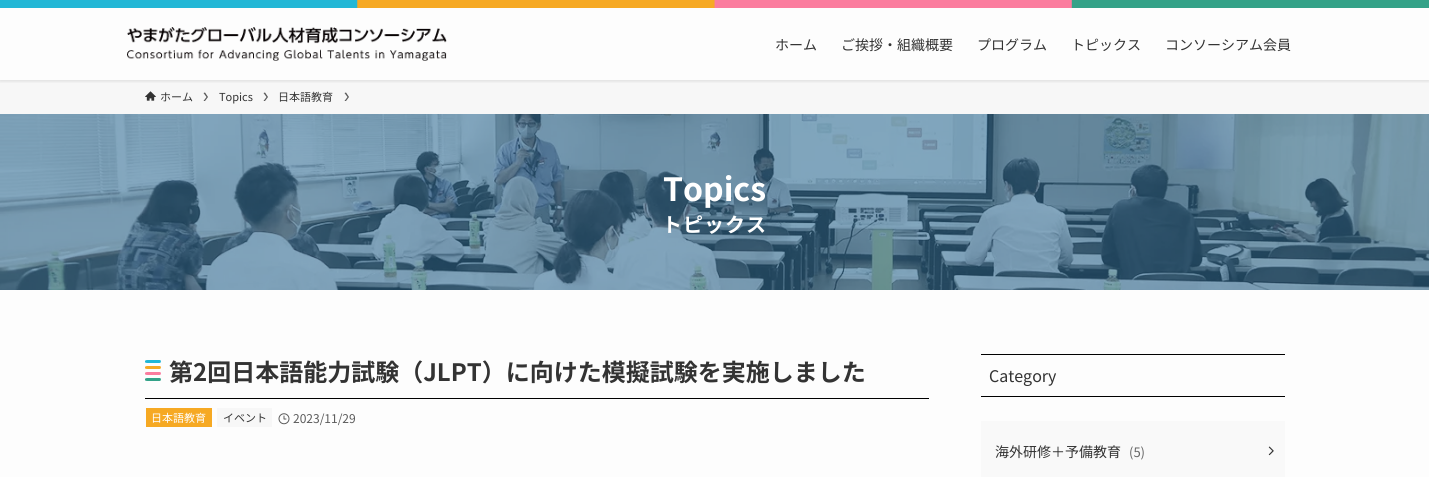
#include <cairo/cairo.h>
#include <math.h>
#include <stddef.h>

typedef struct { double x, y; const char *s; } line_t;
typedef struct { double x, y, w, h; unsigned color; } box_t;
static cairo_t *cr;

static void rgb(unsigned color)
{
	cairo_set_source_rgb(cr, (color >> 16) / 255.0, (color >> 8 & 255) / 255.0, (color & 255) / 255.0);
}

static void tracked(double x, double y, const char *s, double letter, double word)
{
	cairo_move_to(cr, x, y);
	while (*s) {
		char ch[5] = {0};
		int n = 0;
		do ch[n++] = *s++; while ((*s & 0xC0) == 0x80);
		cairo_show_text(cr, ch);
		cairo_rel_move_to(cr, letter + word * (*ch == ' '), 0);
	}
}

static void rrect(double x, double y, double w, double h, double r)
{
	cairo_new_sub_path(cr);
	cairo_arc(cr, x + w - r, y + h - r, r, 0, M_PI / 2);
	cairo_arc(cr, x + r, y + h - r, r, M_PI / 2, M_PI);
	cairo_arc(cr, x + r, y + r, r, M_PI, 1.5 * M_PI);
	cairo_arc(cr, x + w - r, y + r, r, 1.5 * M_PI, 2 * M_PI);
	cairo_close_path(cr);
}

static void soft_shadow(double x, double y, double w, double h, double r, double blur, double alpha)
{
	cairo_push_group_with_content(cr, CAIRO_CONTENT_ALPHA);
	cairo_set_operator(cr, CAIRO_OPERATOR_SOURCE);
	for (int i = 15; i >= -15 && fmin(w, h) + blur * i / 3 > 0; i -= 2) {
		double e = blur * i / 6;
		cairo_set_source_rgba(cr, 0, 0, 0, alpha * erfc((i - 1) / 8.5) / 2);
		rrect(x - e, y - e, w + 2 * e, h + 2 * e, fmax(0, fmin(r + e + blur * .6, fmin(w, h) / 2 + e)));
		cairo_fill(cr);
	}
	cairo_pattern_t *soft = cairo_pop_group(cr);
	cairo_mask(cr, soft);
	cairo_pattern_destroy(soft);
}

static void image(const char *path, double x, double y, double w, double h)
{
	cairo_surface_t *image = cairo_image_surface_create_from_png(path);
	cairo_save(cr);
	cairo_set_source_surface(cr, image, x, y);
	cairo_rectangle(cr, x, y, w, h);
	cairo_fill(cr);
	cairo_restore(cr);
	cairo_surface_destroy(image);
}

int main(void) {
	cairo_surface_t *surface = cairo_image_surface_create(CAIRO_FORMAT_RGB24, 1429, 477);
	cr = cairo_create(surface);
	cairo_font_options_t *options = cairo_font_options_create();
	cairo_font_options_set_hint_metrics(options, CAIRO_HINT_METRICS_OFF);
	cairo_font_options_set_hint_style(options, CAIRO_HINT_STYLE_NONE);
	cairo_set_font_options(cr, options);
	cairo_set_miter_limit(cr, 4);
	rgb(0xfdfdfd);
	cairo_paint(cr);
	rgb(0xf7f7f7);
	cairo_rectangle(cr, 0, 80, 1429, 34);
	cairo_fill(cr);
	cairo_save(cr);
	cairo_rectangle(cr, 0, 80, 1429, 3);
	cairo_clip(cr);
	rgb(0x000000);
	soft_shadow(0, 1, 1429, 80, 0, 2, 0.12);
	cairo_restore(cr);
	image("img/1.png", 0, 0, 1429, 8);
	image("img/2.png", 127, 27, 320, 34);
	image("img/3.png", 145, 91, 11, 10);
	rgb(0x5a5a5a);
	cairo_new_path(cr);
	cairo_move_to(cr, 205, 92.5);
	cairo_line_to(cr, 203.5, 93);
	cairo_line_to(cr, 206.5, 97);
	cairo_line_to(cr, 203.5, 101);
	cairo_line_to(cr, 205, 101);
	cairo_line_to(cr, 208, 97);
	cairo_close_path(cr);
	cairo_fill(cr);
	cairo_new_path(cr);
	cairo_move_to(cr, 265, 92.5);
	cairo_line_to(cr, 263.5, 93);
	cairo_line_to(cr, 266.5, 97);
	cairo_line_to(cr, 263.5, 101);
	cairo_line_to(cr, 265, 101);
	cairo_line_to(cr, 268, 97);
	cairo_close_path(cr);
	cairo_fill(cr);
	cairo_new_path(cr);
	cairo_move_to(cr, 346, 92.5);
	cairo_line_to(cr, 344.5, 93);
	cairo_line_to(cr, 347.5, 97);
	cairo_line_to(cr, 344.5, 101);
	cairo_line_to(cr, 346, 101);
	cairo_line_to(cr, 349, 97);
	cairo_close_path(cr);
	cairo_fill(cr);
	image("img/4.png", 0, 114, 1429, 176);
	image("img/5.png", 145, 360, 16, 21);
	{
		static const box_t items[] = {
			{145, 398, 784, 1, 0x000000},
			{146, 408, 66, 19, 0xf6a923},
			{217, 408, 55, 19, 0xf7f7f7},
		};
		for (size_t i = 0; i < sizeof items / sizeof *items; i++) {
			rgb(items[i].color);
			cairo_rectangle(cr, items[i].x, items[i].y, items[i].w, items[i].h);
			cairo_fill(cr);
		}
	}
	image("img/6.png", 278, 413, 12, 12);
	{
		static const box_t items[] = {
			{981, 354, 304, 1, 0x000000},
			{981, 396, 304, 1, 0x000000},
			{981, 421, 304, 56, 0xf9f9f9},
		};
		for (size_t i = 0; i < sizeof items / sizeof *items; i++) {
			rgb(items[i].color);
			cairo_rectangle(cr, items[i].x, items[i].y, items[i].w, items[i].h);
			cairo_fill(cr);
		}
	}
	image("img/7.png", 1268, 446, 6, 10);
	cairo_select_font_face(cr, "Noto Sans JP", CAIRO_FONT_SLANT_NORMAL, CAIRO_FONT_WEIGHT_NORMAL);
	cairo_set_font_size(cr, 14);
	rgb(0x333333);
	{
		static const line_t items[] = {
			{775, 50, "ホーム"},
			{841, 50, "ご挨拶・組織概要"},
			{977, 50, "プログラム"},
			{1071, 50, "トピックス"},
			{1165, 50, "コンソーシアム会員"},
		};
		for (size_t i = 0; i < sizeof items / sizeof *items; i++) {
			cairo_move_to(cr, items[i].x, items[i].y);
			cairo_show_text(cr, items[i].s);
		}
	}
	cairo_set_font_size(cr, 11);
	{
		static const line_t items[] = {
			{160, 101, "ホーム"},
			{219, 101, "Topics"},
			{278, 101, "日本語教育"},
		};
		for (size_t i = 0; i < sizeof items / sizeof *items; i++) {
			cairo_move_to(cr, items[i].x, items[i].y);
			cairo_show_text(cr, items[i].s);
		}
	}
	cairo_select_font_face(cr, "Noto Sans JP", CAIRO_FONT_SLANT_NORMAL, CAIRO_FONT_WEIGHT_BOLD);
	cairo_set_font_size(cr, 32);
	rgb(0xffffff);
	cairo_move_to(cr, 663, 201);
	cairo_show_text(cr, "Topics");
	cairo_set_font_size(cr, 20);
	tracked(662, 232, "トピックス", 1, 0);
	cairo_set_font_size(cr, 24);
	rgb(0x333333);
	cairo_move_to(cr, 169, 381);
	cairo_show_text(cr, "第2回日本語能力試験（JLPT）に向けた模擬試験を実施しました");
	cairo_select_font_face(cr, "Noto Sans JP", CAIRO_FONT_SLANT_NORMAL, CAIRO_FONT_WEIGHT_NORMAL);
	cairo_set_font_size(cr, 11);
	rgb(0xffffff);
	cairo_move_to(cr, 151, 422);
	cairo_show_text(cr, "日本語教育");
	rgb(0x333333);
	cairo_move_to(cr, 223, 422);
	cairo_show_text(cr, "イベント");
	cairo_set_font_size(cr, 12);
	rgb(0x5b5b5b);
	cairo_move_to(cr, 293, 423);
	cairo_show_text(cr, "2023/11/29");
	cairo_set_font_size(cr, 16);
	rgb(0x333333);
	cairo_move_to(cr, 989, 382);
	cairo_show_text(cr, "Category");
	cairo_set_font_size(cr, 14);
	cairo_move_to(cr, 995, 457);
	cairo_show_text(cr, "海外研修＋予備教育");
	cairo_set_font_size(cr, 13);
	rgb(0x666666);
	cairo_move_to(cr, 1129, 457);
	cairo_show_text(cr, "(5)");
	cairo_surface_write_to_png(surface, "page.png");
	cairo_font_options_destroy(options);
	cairo_destroy(cr);
	cairo_surface_destroy(surface);
	return 0;
}
